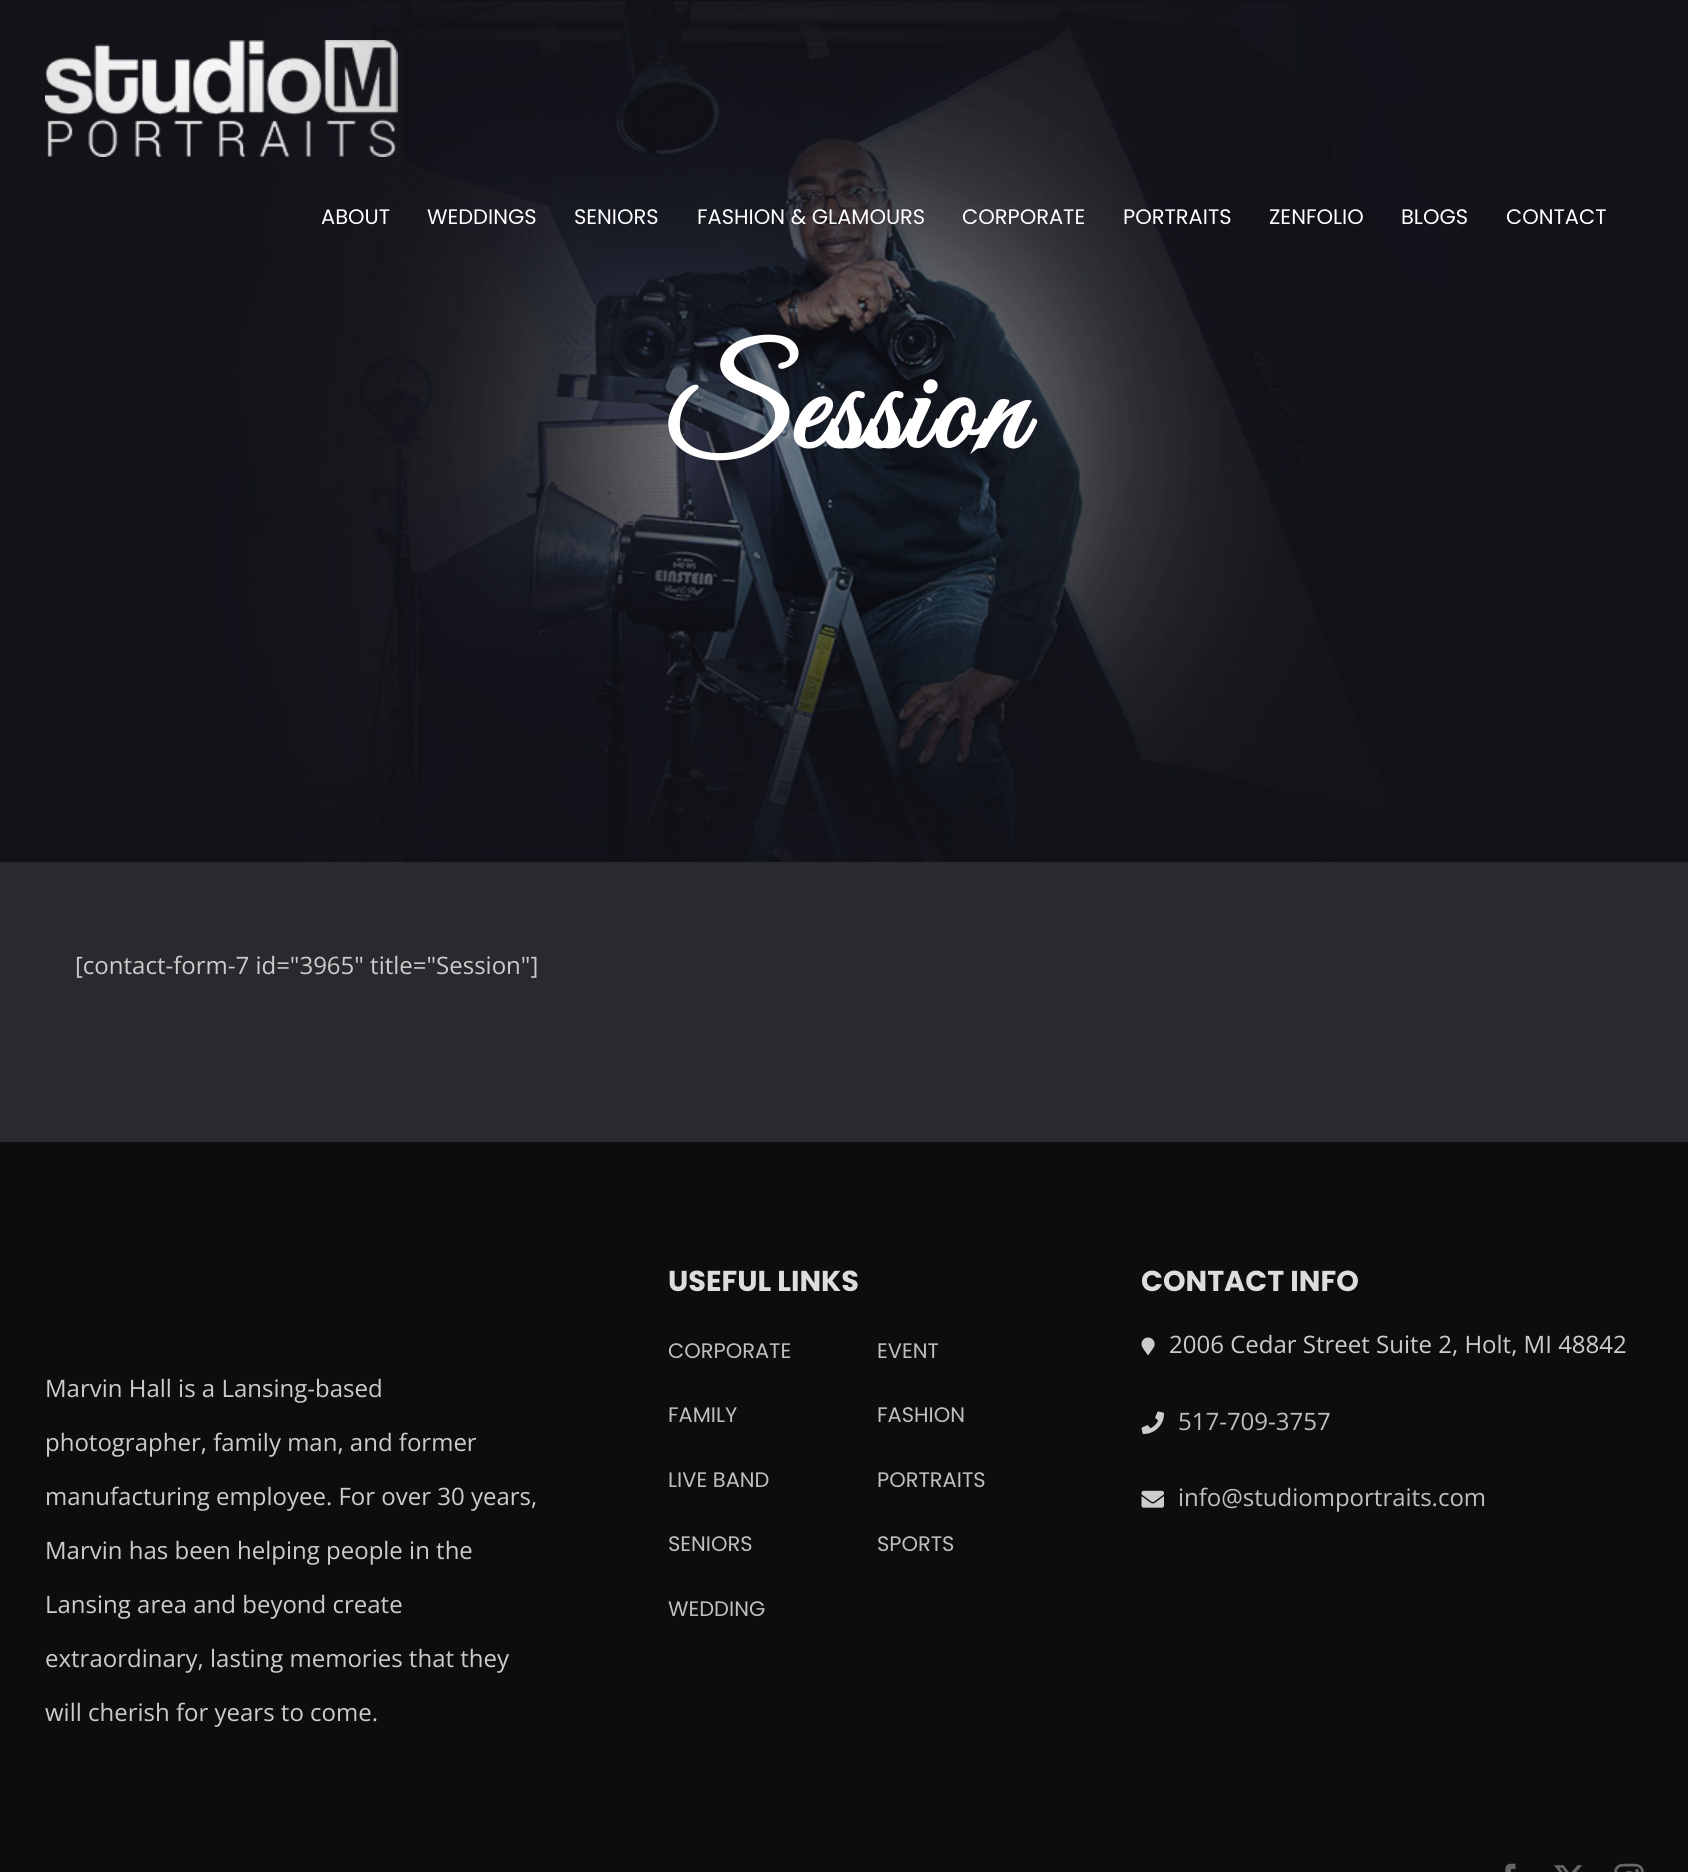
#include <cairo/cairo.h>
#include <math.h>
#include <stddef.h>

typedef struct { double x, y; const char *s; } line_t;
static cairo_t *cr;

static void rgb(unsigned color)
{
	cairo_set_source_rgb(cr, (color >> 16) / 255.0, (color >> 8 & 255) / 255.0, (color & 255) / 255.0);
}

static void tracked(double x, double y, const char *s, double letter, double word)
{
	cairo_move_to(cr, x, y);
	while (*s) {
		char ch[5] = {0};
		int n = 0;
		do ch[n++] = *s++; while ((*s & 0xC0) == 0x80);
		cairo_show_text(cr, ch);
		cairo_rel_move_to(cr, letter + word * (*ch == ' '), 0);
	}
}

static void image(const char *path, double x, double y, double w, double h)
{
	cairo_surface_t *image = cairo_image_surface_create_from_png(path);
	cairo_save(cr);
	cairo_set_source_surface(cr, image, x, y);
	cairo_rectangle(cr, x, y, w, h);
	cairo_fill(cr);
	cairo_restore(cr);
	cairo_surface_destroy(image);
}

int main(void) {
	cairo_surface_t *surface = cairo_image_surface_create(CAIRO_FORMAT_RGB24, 1688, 1872);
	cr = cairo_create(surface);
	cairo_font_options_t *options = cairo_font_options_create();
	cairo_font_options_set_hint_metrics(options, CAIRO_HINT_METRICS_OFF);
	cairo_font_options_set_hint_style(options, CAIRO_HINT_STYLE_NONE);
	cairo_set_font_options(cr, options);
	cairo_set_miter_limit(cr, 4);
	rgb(0x282a2d);
	cairo_paint(cr);
	image("img/2.png", 0, 0, 1688, 862);
	image("img/1.png", 45, 40, 353, 117);
	rgb(0x0d0d0d);
	cairo_rectangle(cr, 0, 1142, 1688, 730);
	cairo_fill(cr);
	image("img/3.png", 1141, 1337, 14, 18);
	image("img/4.png", 1141, 1411, 23, 23);
	image("img/5.png", 1141, 1490, 23, 18);
	image("img/6.png", 1505, 1863, 11, 9);
	image("img/7.png", 1554, 1865, 28, 7);
	image("img/8.png", 1614, 1863, 30, 9);
	cairo_select_font_face(cr, "Poppins", CAIRO_FONT_SLANT_NORMAL, CAIRO_FONT_WEIGHT_NORMAL);
	cairo_set_font_size(cr, 21);
	rgb(0xffffff);
	{
		static const line_t items[] = {
			{321, 224, "ABOUT"},
			{427, 224, "WEDDINGS"},
			{574, 224, "SENIORS"},
			{697, 224, "FASHION & GLAMOURS"},
			{962, 224, "CORPORATE"},
			{1123, 224, "PORTRAITS"},
			{1269, 224, "ZENFOLIO"},
			{1401, 224, "BLOGS"},
			{1506, 224, "CONTACT"},
		};
		for (size_t i = 0; i < sizeof items / sizeof *items; i++) {
			cairo_move_to(cr, items[i].x, items[i].y);
			cairo_show_text(cr, items[i].s);
		}
	}
	cairo_select_font_face(cr, "Great Vibes", CAIRO_FONT_SLANT_NORMAL, CAIRO_FONT_WEIGHT_BOLD);
	cairo_set_font_size(cr, 134);
	tracked(662, 448, "Session", 3, 0);
	cairo_select_font_face(cr, "Open Sans", CAIRO_FONT_SLANT_NORMAL, CAIRO_FONT_WEIGHT_NORMAL);
	cairo_set_font_size(cr, 24);
	rgb(0xcccccc);
	{
		static const line_t items[] = {
			{75, 974, "[contact-form-7 id=\"3965\" title=\"Session\"]"},
			{45, 1397, "Marvin Hall is a Lansing-based"},
			{45, 1451, "photographer, family man, and former"},
			{45, 1505, "manufacturing employee. For over 30 years,"},
			{45, 1559, "Marvin has been helping people in the"},
			{45, 1613, "Lansing area and beyond create"},
			{45, 1667, "extraordinary, lasting memories that they"},
			{45, 1721, "will cherish for years to come."},
		};
		for (size_t i = 0; i < sizeof items / sizeof *items; i++) {
			cairo_move_to(cr, items[i].x, items[i].y);
			cairo_show_text(cr, items[i].s);
		}
	}
	cairo_select_font_face(cr, "Poppins", CAIRO_FONT_SLANT_NORMAL, CAIRO_FONT_WEIGHT_BOLD);
	cairo_set_font_size(cr, 28.75);
	rgb(0xdddddd);
	cairo_move_to(cr, 668, 1291);
	cairo_show_text(cr, "USEFUL LINKS");
	cairo_select_font_face(cr, "Poppins", CAIRO_FONT_SLANT_NORMAL, CAIRO_FONT_WEIGHT_NORMAL);
	cairo_set_font_size(cr, 21);
	rgb(0xbfbfbf);
	{
		static const line_t items[] = {
			{668, 1358, "CORPORATE"},
			{877, 1358, "EVENT"},
			{668, 1422, "FAMILY"},
			{877, 1422, "FASHION"},
			{668, 1487, "LIVE BAND"},
			{877, 1487, "PORTRAITS"},
			{668, 1551, "SENIORS"},
			{877, 1551, "SPORTS"},
			{668, 1616, "WEDDING"},
		};
		for (size_t i = 0; i < sizeof items / sizeof *items; i++) {
			cairo_move_to(cr, items[i].x, items[i].y);
			cairo_show_text(cr, items[i].s);
		}
	}
	cairo_select_font_face(cr, "Poppins", CAIRO_FONT_SLANT_NORMAL, CAIRO_FONT_WEIGHT_BOLD);
	cairo_set_font_size(cr, 28.75);
	rgb(0xdddddd);
	cairo_move_to(cr, 1141, 1291);
	cairo_show_text(cr, "CONTACT INFO");
	cairo_select_font_face(cr, "Open Sans", CAIRO_FONT_SLANT_NORMAL, CAIRO_FONT_WEIGHT_NORMAL);
	cairo_set_font_size(cr, 24);
	rgb(0xcccccc);
	cairo_move_to(cr, 1169, 1353);
	cairo_show_text(cr, "2006 Cedar Street Suite 2, Holt, MI 48842");
	rgb(0xbfbfbf);
	cairo_move_to(cr, 1178, 1430);
	cairo_show_text(cr, "517-709-3757");
	cairo_move_to(cr, 1178, 1506);
	cairo_show_text(cr, "info@studiomportraits.com");
	cairo_surface_write_to_png(surface, "page.png");
	cairo_font_options_destroy(options);
	cairo_destroy(cr);
	cairo_surface_destroy(surface);
	return 0;
}
